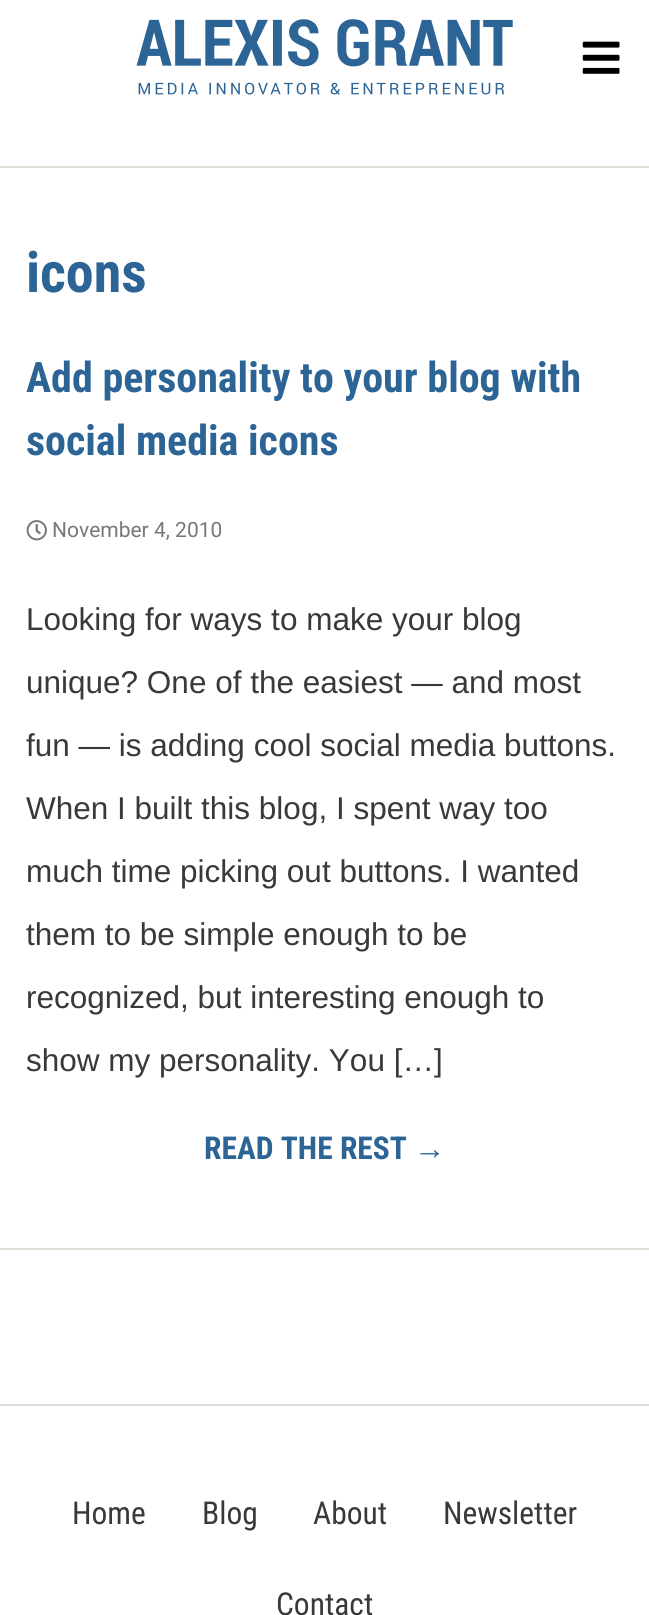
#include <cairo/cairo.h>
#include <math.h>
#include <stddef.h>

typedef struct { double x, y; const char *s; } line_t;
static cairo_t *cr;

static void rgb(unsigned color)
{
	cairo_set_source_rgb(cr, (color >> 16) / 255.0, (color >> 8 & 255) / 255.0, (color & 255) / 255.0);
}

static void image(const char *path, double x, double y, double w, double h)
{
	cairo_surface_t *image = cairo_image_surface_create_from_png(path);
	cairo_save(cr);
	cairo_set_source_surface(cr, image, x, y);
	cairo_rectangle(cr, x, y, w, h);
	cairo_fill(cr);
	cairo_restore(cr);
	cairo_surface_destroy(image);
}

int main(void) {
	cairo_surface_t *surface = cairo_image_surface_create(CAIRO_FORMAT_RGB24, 649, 1615);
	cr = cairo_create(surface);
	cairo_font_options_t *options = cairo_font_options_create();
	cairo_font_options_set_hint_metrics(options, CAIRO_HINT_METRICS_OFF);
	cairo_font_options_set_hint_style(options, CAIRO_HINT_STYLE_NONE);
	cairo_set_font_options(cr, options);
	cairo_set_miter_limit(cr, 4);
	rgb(0xffffff);
	cairo_paint(cr);
	rgb(0xdeded7);
	cairo_rectangle(cr, 0, 166, 649, 2);
	cairo_fill(cr);
	image("img/1.png", 136, 19, 377, 76);
	image("img/2.png", 582, 41, 38, 33);
	cairo_rectangle(cr, 0, 1248, 649, 2);
	cairo_fill(cr);
	image("img/3.png", 26, 520, 21, 21);
	cairo_rectangle(cr, 0, 1404, 649, 2);
	cairo_fill(cr);
	cairo_select_font_face(cr, "Roboto Condensed", CAIRO_FONT_SLANT_NORMAL, CAIRO_FONT_WEIGHT_BOLD);
	cairo_set_font_size(cr, 56);
	rgb(0x2c6495);
	cairo_move_to(cr, 26, 292);
	cairo_show_text(cr, "icons");
	cairo_set_font_size(cr, 42);
	cairo_move_to(cr, 26, 392);
	cairo_show_text(cr, "Add personality to your blog with");
	cairo_move_to(cr, 26, 455);
	cairo_show_text(cr, "social media icons");
	cairo_select_font_face(cr, "Roboto", CAIRO_FONT_SLANT_NORMAL, CAIRO_FONT_WEIGHT_NORMAL);
	cairo_set_font_size(cr, 21);
	rgb(0x787874);
	cairo_move_to(cr, 52, 537);
	cairo_show_text(cr, "November 4, 2010");
	cairo_select_font_face(cr, "Liberation Sans", CAIRO_FONT_SLANT_NORMAL, CAIRO_FONT_WEIGHT_NORMAL);
	cairo_set_font_size(cr, 31.5);
	rgb(0x393937);
	{
		static const line_t items[] = {
			{26, 630, "Looking for ways to make your blog"},
			{26, 693, "unique? One of the easiest — and most"},
			{26, 756, "fun — is adding cool social media buttons."},
			{26, 819, "When I built this blog, I spent way too"},
			{26, 882, "much time picking out buttons. I wanted"},
			{26, 945, "them to be simple enough to be"},
			{26, 1008, "recognized, but interesting enough to"},
			{26, 1071, "show my personality. You […]"},
		};
		for (size_t i = 0; i < sizeof items / sizeof *items; i++) {
			cairo_move_to(cr, items[i].x, items[i].y);
			cairo_show_text(cr, items[i].s);
		}
	}
	cairo_select_font_face(cr, "Roboto Condensed", CAIRO_FONT_SLANT_NORMAL, CAIRO_FONT_WEIGHT_BOLD);
	rgb(0x2c6495);
	cairo_move_to(cr, 204, 1159);
	cairo_show_text(cr, "READ THE REST");
	cairo_select_font_face(cr, "Liberation Sans", CAIRO_FONT_SLANT_NORMAL, CAIRO_FONT_WEIGHT_BOLD);
	cairo_move_to(cr, 414, 1159);
	cairo_show_text(cr, "→");
	cairo_select_font_face(cr, "Roboto Condensed", CAIRO_FONT_SLANT_NORMAL, CAIRO_FONT_WEIGHT_NORMAL);
	rgb(0x393937);
	{
		static const line_t items[] = {
			{72, 1524, "Home"},
			{202, 1524, "Blog"},
			{313, 1524, "About"},
			{443, 1524, "Newsletter"},
			{276, 1615, "Contact"},
		};
		for (size_t i = 0; i < sizeof items / sizeof *items; i++) {
			cairo_move_to(cr, items[i].x, items[i].y);
			cairo_show_text(cr, items[i].s);
		}
	}
	cairo_surface_write_to_png(surface, "page.png");
	cairo_font_options_destroy(options);
	cairo_destroy(cr);
	cairo_surface_destroy(surface);
	return 0;
}
